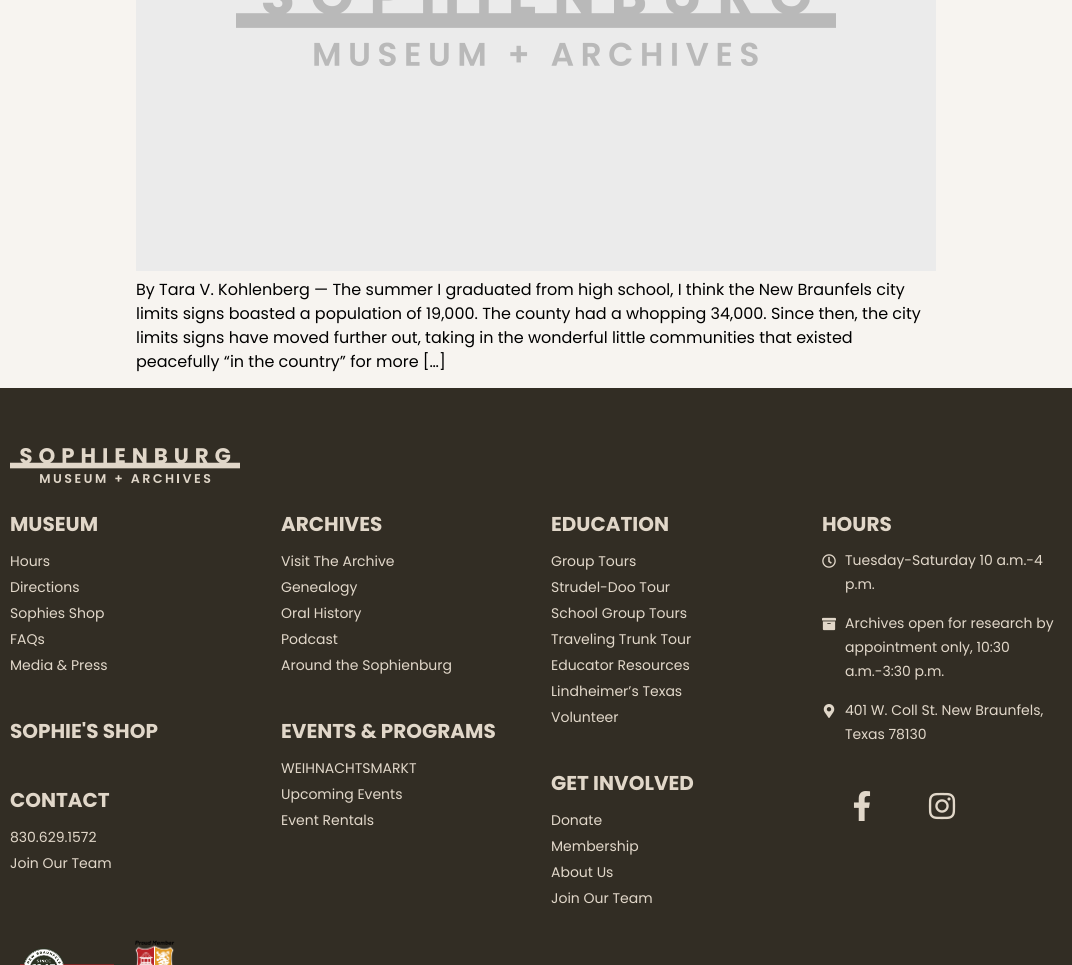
#include <cairo/cairo.h>
#include <math.h>
#include <stddef.h>

typedef struct { double x, y; const char *s; } line_t;
static cairo_t *cr;

static void rgb(unsigned color)
{
	cairo_set_source_rgb(cr, (color >> 16) / 255.0, (color >> 8 & 255) / 255.0, (color & 255) / 255.0);
}

static void image(const char *path, double x, double y, double w, double h)
{
	cairo_surface_t *image = cairo_image_surface_create_from_png(path);
	cairo_save(cr);
	cairo_set_source_surface(cr, image, x, y);
	cairo_rectangle(cr, x, y, w, h);
	cairo_fill(cr);
	cairo_restore(cr);
	cairo_surface_destroy(image);
}

int main(void) {
	cairo_surface_t *surface = cairo_image_surface_create(CAIRO_FORMAT_RGB24, 1072, 965);
	cr = cairo_create(surface);
	cairo_font_options_t *options = cairo_font_options_create();
	cairo_font_options_set_hint_metrics(options, CAIRO_HINT_METRICS_OFF);
	cairo_font_options_set_hint_style(options, CAIRO_HINT_STYLE_NONE);
	cairo_set_font_options(cr, options);
	cairo_set_miter_limit(cr, 4);
	rgb(0xf7f4f0);
	cairo_paint(cr);
	image("img/1.png", 136, 0, 800, 271);
	rgb(0x322d24);
	cairo_rectangle(cr, 0, 388, 1072, 577);
	cairo_fill(cr);
	image("img/2.png", 10, 448, 230, 35);
	image("img/3.png", 822, 554, 14, 14);
	image("img/4.png", 822, 617, 14, 14);
	image("img/5.png", 823, 704, 12, 14);
	image("img/6.png", 853, 791, 18, 30);
	image("img/7.png", 928, 792, 28, 28);
	image("img/8.png", 20, 948, 94, 17);
	image("img/9.png", 135, 940, 40, 25);
	cairo_select_font_face(cr, "Poppins", CAIRO_FONT_SLANT_NORMAL, CAIRO_FONT_WEIGHT_NORMAL);
	cairo_set_font_size(cr, 16);
	rgb(0x000000);
	{
		static const line_t items[] = {
			{136, 295, "By Tara V. Kohlenberg — The summer I graduated from high school, I think the New Braunfels city"},
			{136, 319, "limits signs boasted a population of 19,000. The county had a whopping 34,000. Since then, the city"},
			{136, 343, "limits signs have moved further out, taking in the wonderful little communities that existed"},
			{136, 367, "peacefully “in the country” for more […]"},
		};
		for (size_t i = 0; i < sizeof items / sizeof *items; i++) {
			cairo_move_to(cr, items[i].x, items[i].y);
			cairo_show_text(cr, items[i].s);
		}
	}
	cairo_select_font_face(cr, "Poppins", CAIRO_FONT_SLANT_NORMAL, CAIRO_FONT_WEIGHT_BOLD);
	cairo_set_font_size(cr, 20);
	rgb(0xe1d7c9);
	cairo_move_to(cr, 10, 531);
	cairo_show_text(cr, "MUSEUM");
	cairo_select_font_face(cr, "Poppins", CAIRO_FONT_SLANT_NORMAL, CAIRO_FONT_WEIGHT_NORMAL);
	cairo_set_font_size(cr, 14);
	{
		static const line_t items[] = {
			{10, 566, "Hours"},
			{10, 592, "Directions"},
			{10, 618, "Sophies Shop"},
			{10, 644, "FAQs"},
			{10, 670, "Media & Press"},
		};
		for (size_t i = 0; i < sizeof items / sizeof *items; i++) {
			cairo_move_to(cr, items[i].x, items[i].y);
			cairo_show_text(cr, items[i].s);
		}
	}
	cairo_select_font_face(cr, "Poppins", CAIRO_FONT_SLANT_NORMAL, CAIRO_FONT_WEIGHT_BOLD);
	cairo_set_font_size(cr, 20);
	cairo_move_to(cr, 10, 738);
	cairo_show_text(cr, "SOPHIE'S SHOP");
	cairo_move_to(cr, 10, 807);
	cairo_show_text(cr, "CONTACT");
	cairo_select_font_face(cr, "Poppins", CAIRO_FONT_SLANT_NORMAL, CAIRO_FONT_WEIGHT_NORMAL);
	cairo_set_font_size(cr, 14);
	cairo_move_to(cr, 10, 842);
	cairo_show_text(cr, "830.629.1572");
	cairo_move_to(cr, 10, 868);
	cairo_show_text(cr, "Join Our Team");
	cairo_select_font_face(cr, "Poppins", CAIRO_FONT_SLANT_NORMAL, CAIRO_FONT_WEIGHT_BOLD);
	cairo_set_font_size(cr, 20);
	cairo_move_to(cr, 281, 531);
	cairo_show_text(cr, "ARCHIVES");
	cairo_select_font_face(cr, "Poppins", CAIRO_FONT_SLANT_NORMAL, CAIRO_FONT_WEIGHT_NORMAL);
	cairo_set_font_size(cr, 14);
	{
		static const line_t items[] = {
			{281, 566, "Visit The Archive"},
			{281, 592, "Genealogy"},
			{281, 618, "Oral History"},
			{281, 644, "Podcast"},
			{281, 670, "Around the Sophienburg"},
		};
		for (size_t i = 0; i < sizeof items / sizeof *items; i++) {
			cairo_move_to(cr, items[i].x, items[i].y);
			cairo_show_text(cr, items[i].s);
		}
	}
	cairo_select_font_face(cr, "Poppins", CAIRO_FONT_SLANT_NORMAL, CAIRO_FONT_WEIGHT_BOLD);
	cairo_set_font_size(cr, 20);
	cairo_move_to(cr, 281, 738);
	cairo_show_text(cr, "EVENTS & PROGRAMS");
	cairo_select_font_face(cr, "Poppins", CAIRO_FONT_SLANT_NORMAL, CAIRO_FONT_WEIGHT_NORMAL);
	cairo_set_font_size(cr, 14);
	{
		static const line_t items[] = {
			{281, 773, "WEIHNACHTSMARKT"},
			{281, 799, "Upcoming Events"},
			{281, 825, "Event Rentals"},
		};
		for (size_t i = 0; i < sizeof items / sizeof *items; i++) {
			cairo_move_to(cr, items[i].x, items[i].y);
			cairo_show_text(cr, items[i].s);
		}
	}
	cairo_select_font_face(cr, "Poppins", CAIRO_FONT_SLANT_NORMAL, CAIRO_FONT_WEIGHT_BOLD);
	cairo_set_font_size(cr, 20);
	cairo_move_to(cr, 551, 531);
	cairo_show_text(cr, "EDUCATION");
	cairo_select_font_face(cr, "Poppins", CAIRO_FONT_SLANT_NORMAL, CAIRO_FONT_WEIGHT_NORMAL);
	cairo_set_font_size(cr, 14);
	{
		static const line_t items[] = {
			{551, 566, "Group Tours"},
			{551, 592, "Strudel-Doo Tour"},
			{551, 618, "School Group Tours"},
			{551, 644, "Traveling Trunk Tour"},
			{551, 670, "Educator Resources"},
			{551, 696, "Lindheimer’s Texas"},
			{551, 722, "Volunteer"},
		};
		for (size_t i = 0; i < sizeof items / sizeof *items; i++) {
			cairo_move_to(cr, items[i].x, items[i].y);
			cairo_show_text(cr, items[i].s);
		}
	}
	cairo_select_font_face(cr, "Poppins", CAIRO_FONT_SLANT_NORMAL, CAIRO_FONT_WEIGHT_BOLD);
	cairo_set_font_size(cr, 20);
	cairo_move_to(cr, 551, 790);
	cairo_show_text(cr, "GET INVOLVED");
	cairo_select_font_face(cr, "Poppins", CAIRO_FONT_SLANT_NORMAL, CAIRO_FONT_WEIGHT_NORMAL);
	cairo_set_font_size(cr, 14);
	{
		static const line_t items[] = {
			{551, 825, "Donate"},
			{551, 851, "Membership"},
			{551, 877, "About Us"},
			{551, 903, "Join Our Team"},
		};
		for (size_t i = 0; i < sizeof items / sizeof *items; i++) {
			cairo_move_to(cr, items[i].x, items[i].y);
			cairo_show_text(cr, items[i].s);
		}
	}
	cairo_select_font_face(cr, "Poppins", CAIRO_FONT_SLANT_NORMAL, CAIRO_FONT_WEIGHT_BOLD);
	cairo_set_font_size(cr, 20);
	cairo_move_to(cr, 822, 531);
	cairo_show_text(cr, "HOURS");
	cairo_select_font_face(cr, "Poppins", CAIRO_FONT_SLANT_NORMAL, CAIRO_FONT_WEIGHT_NORMAL);
	cairo_set_font_size(cr, 14);
	{
		static const line_t items[] = {
			{845, 565, "Tuesday-Saturday 10 a.m.-4"},
			{845, 589, "p.m."},
			{845, 628, "Archives open for research by"},
			{845, 652, "appointment only, 10:30"},
			{845, 676, "a.m.-3:30 p.m."},
			{845, 715, "401 W. Coll St. New Braunfels,"},
			{845, 739, "Texas 78130"},
		};
		for (size_t i = 0; i < sizeof items / sizeof *items; i++) {
			cairo_move_to(cr, items[i].x, items[i].y);
			cairo_show_text(cr, items[i].s);
		}
	}
	cairo_surface_write_to_png(surface, "page.png");
	cairo_font_options_destroy(options);
	cairo_destroy(cr);
	cairo_surface_destroy(surface);
	return 0;
}
